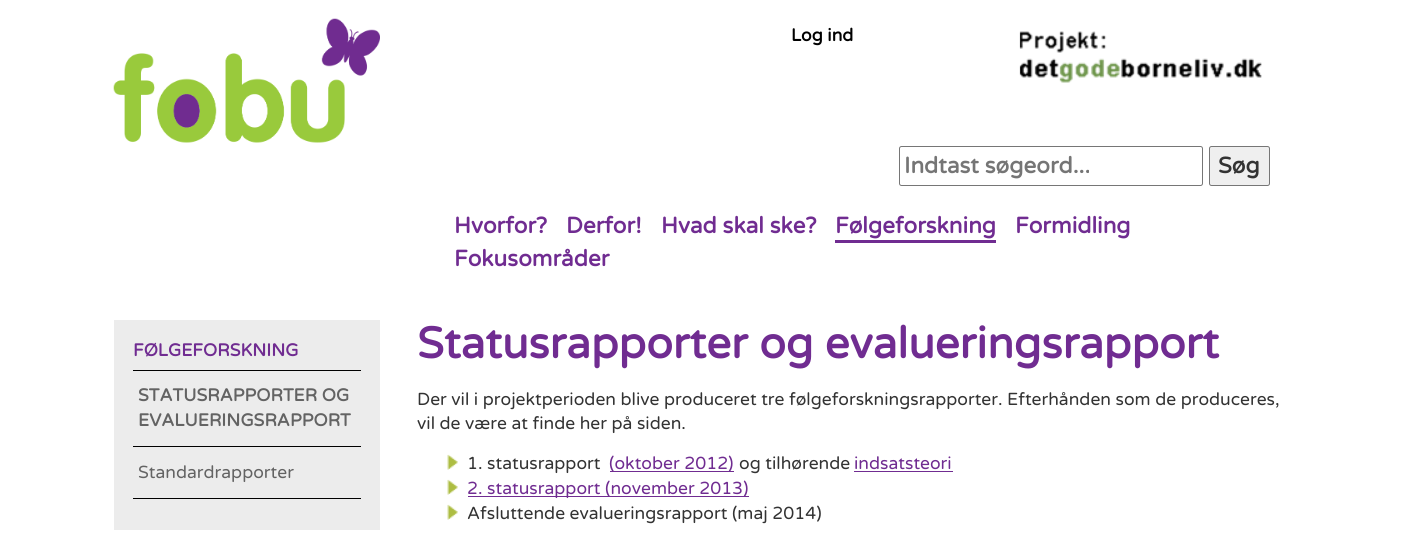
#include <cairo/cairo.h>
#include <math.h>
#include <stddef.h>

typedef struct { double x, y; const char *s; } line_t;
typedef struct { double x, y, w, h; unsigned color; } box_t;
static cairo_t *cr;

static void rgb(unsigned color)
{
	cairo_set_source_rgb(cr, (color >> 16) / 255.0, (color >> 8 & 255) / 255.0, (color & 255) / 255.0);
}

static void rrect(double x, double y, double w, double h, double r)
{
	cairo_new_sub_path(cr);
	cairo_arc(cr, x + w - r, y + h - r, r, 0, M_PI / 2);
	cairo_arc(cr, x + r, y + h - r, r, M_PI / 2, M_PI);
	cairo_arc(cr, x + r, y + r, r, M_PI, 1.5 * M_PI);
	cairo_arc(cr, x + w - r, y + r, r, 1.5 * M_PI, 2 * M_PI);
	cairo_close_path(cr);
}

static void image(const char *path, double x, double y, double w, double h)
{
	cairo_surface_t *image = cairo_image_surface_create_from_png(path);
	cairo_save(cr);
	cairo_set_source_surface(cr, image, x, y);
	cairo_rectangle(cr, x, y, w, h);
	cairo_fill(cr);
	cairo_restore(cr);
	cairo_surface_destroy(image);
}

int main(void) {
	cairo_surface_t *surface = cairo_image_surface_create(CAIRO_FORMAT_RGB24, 1402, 539);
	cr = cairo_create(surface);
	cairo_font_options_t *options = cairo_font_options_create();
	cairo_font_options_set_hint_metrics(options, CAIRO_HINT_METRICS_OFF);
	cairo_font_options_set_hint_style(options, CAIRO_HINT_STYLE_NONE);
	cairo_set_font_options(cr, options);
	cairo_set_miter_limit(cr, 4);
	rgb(0xffffff);
	cairo_paint(cr);
	image("img/1.png", 113, 18, 267, 125);
	image("img/2.png", 1019, 31, 243, 52);
	rrect(899.5, 146.5, 303, 39, 2);
	rgb(0x767676);
	cairo_set_line_width(cr, 1);
	cairo_stroke(cr);
	rgb(0xefefef);
	rrect(1209.5, 146.5, 60, 39, 2);
	cairo_fill_preserve(cr);
	rgb(0x767676);
	cairo_stroke(cr);
	{
		static const box_t items[] = {
			{835, 240, 161, 3, 0x702c91},
			{114, 320, 266, 210, 0xececec},
			{133, 498, 228, 1, 0x000000},
			{133, 370, 228, 1, 0x000000},
			{133, 446, 228, 1, 0x000000},
		};
		for (size_t i = 0; i < sizeof items / sizeof *items; i++) {
			rgb(items[i].color);
			cairo_rectangle(cr, items[i].x, items[i].y, items[i].w, items[i].h);
			cairo_fill(cr);
		}
	}
	image("img/3.png", 447, 454, 11, 16);
	rgb(0x702c91);
	cairo_rectangle(cr, 610, 471, 124, 1);
	cairo_fill(cr);
	cairo_rectangle(cr, 854, 471, 99, 1);
	cairo_fill(cr);
	image("img/3.png", 447, 479, 11, 16);
	cairo_rectangle(cr, 468, 496, 281, 1);
	cairo_fill(cr);
	image("img/3.png", 447, 504, 11, 16);
	cairo_select_font_face(cr, "Varela Round", CAIRO_FONT_SLANT_NORMAL, CAIRO_FONT_WEIGHT_BOLD);
	cairo_set_font_size(cr, 17.5);
	rgb(0x000000);
	cairo_move_to(cr, 791, 41);
	cairo_show_text(cr, "Log ind");
	cairo_set_font_size(cr, 22.5);
	rgb(0x757575);
	cairo_move_to(cr, 904, 173);
	cairo_show_text(cr, "Indtast søgeord...");
	rgb(0x333333);
	cairo_move_to(cr, 1218, 173);
	cairo_show_text(cr, "Søg");
	rgb(0x702c91);
	{
		static const line_t items[] = {
			{454, 233, "Hvorfor?"},
			{566, 233, "Derfor!"},
			{661, 233, "Hvad skal ske?"},
			{835, 233, "Følgeforskning"},
			{1015, 233, "Formidling"},
			{454, 266, "Fokusområder"},
		};
		for (size_t i = 0; i < sizeof items / sizeof *items; i++) {
			cairo_move_to(cr, items[i].x, items[i].y);
			cairo_show_text(cr, items[i].s);
		}
	}
	cairo_set_font_size(cr, 17.5);
	cairo_move_to(cr, 133, 356);
	cairo_show_text(cr, "FØLGEFORSKNING");
	rgb(0x636363);
	cairo_move_to(cr, 138, 401);
	cairo_show_text(cr, "STATUSRAPPORTER OG");
	cairo_move_to(cr, 138, 426);
	cairo_show_text(cr, "EVALUERINGSRAPPORT");
	cairo_select_font_face(cr, "Varela Round", CAIRO_FONT_SLANT_NORMAL, CAIRO_FONT_WEIGHT_NORMAL);
	cairo_move_to(cr, 138, 478);
	cairo_show_text(cr, "Standardrapporter");
	cairo_select_font_face(cr, "Varela Round", CAIRO_FONT_SLANT_NORMAL, CAIRO_FONT_WEIGHT_BOLD);
	cairo_set_font_size(cr, 43.75);
	rgb(0x702c91);
	cairo_move_to(cr, 417, 358);
	cairo_show_text(cr, "Statusrapporter og evalueringsrapport");
	cairo_select_font_face(cr, "Varela Round", CAIRO_FONT_SLANT_NORMAL, CAIRO_FONT_WEIGHT_NORMAL);
	cairo_set_font_size(cr, 17.5);
	rgb(0x333333);
	{
		static const line_t items[] = {
			{417, 405, "Der vil i projektperioden blive produceret tre følgeforskningsrapporter. Efterhånden som de produceres,"},
			{417, 429, "vil de være at finde her på siden."},
			{467, 469, "1. statusrapport"},
		};
		for (size_t i = 0; i < sizeof items / sizeof *items; i++) {
			cairo_move_to(cr, items[i].x, items[i].y);
			cairo_show_text(cr, items[i].s);
		}
	}
	rgb(0x702c91);
	cairo_move_to(cr, 609, 469);
	cairo_show_text(cr, "(oktober 2012)");
	rgb(0x333333);
	cairo_move_to(cr, 739, 469);
	cairo_show_text(cr, "og tilhørende");
	rgb(0x702c91);
	cairo_move_to(cr, 854, 469);
	cairo_show_text(cr, "indsatsteori");
	cairo_move_to(cr, 467, 494);
	cairo_show_text(cr, "2. statusrapport (november 2013)");
	rgb(0x333333);
	cairo_move_to(cr, 467, 519);
	cairo_show_text(cr, "Afsluttende evalueringsrapport (maj 2014)");
	cairo_surface_write_to_png(surface, "page.png");
	cairo_font_options_destroy(options);
	cairo_destroy(cr);
	cairo_surface_destroy(surface);
	return 0;
}
